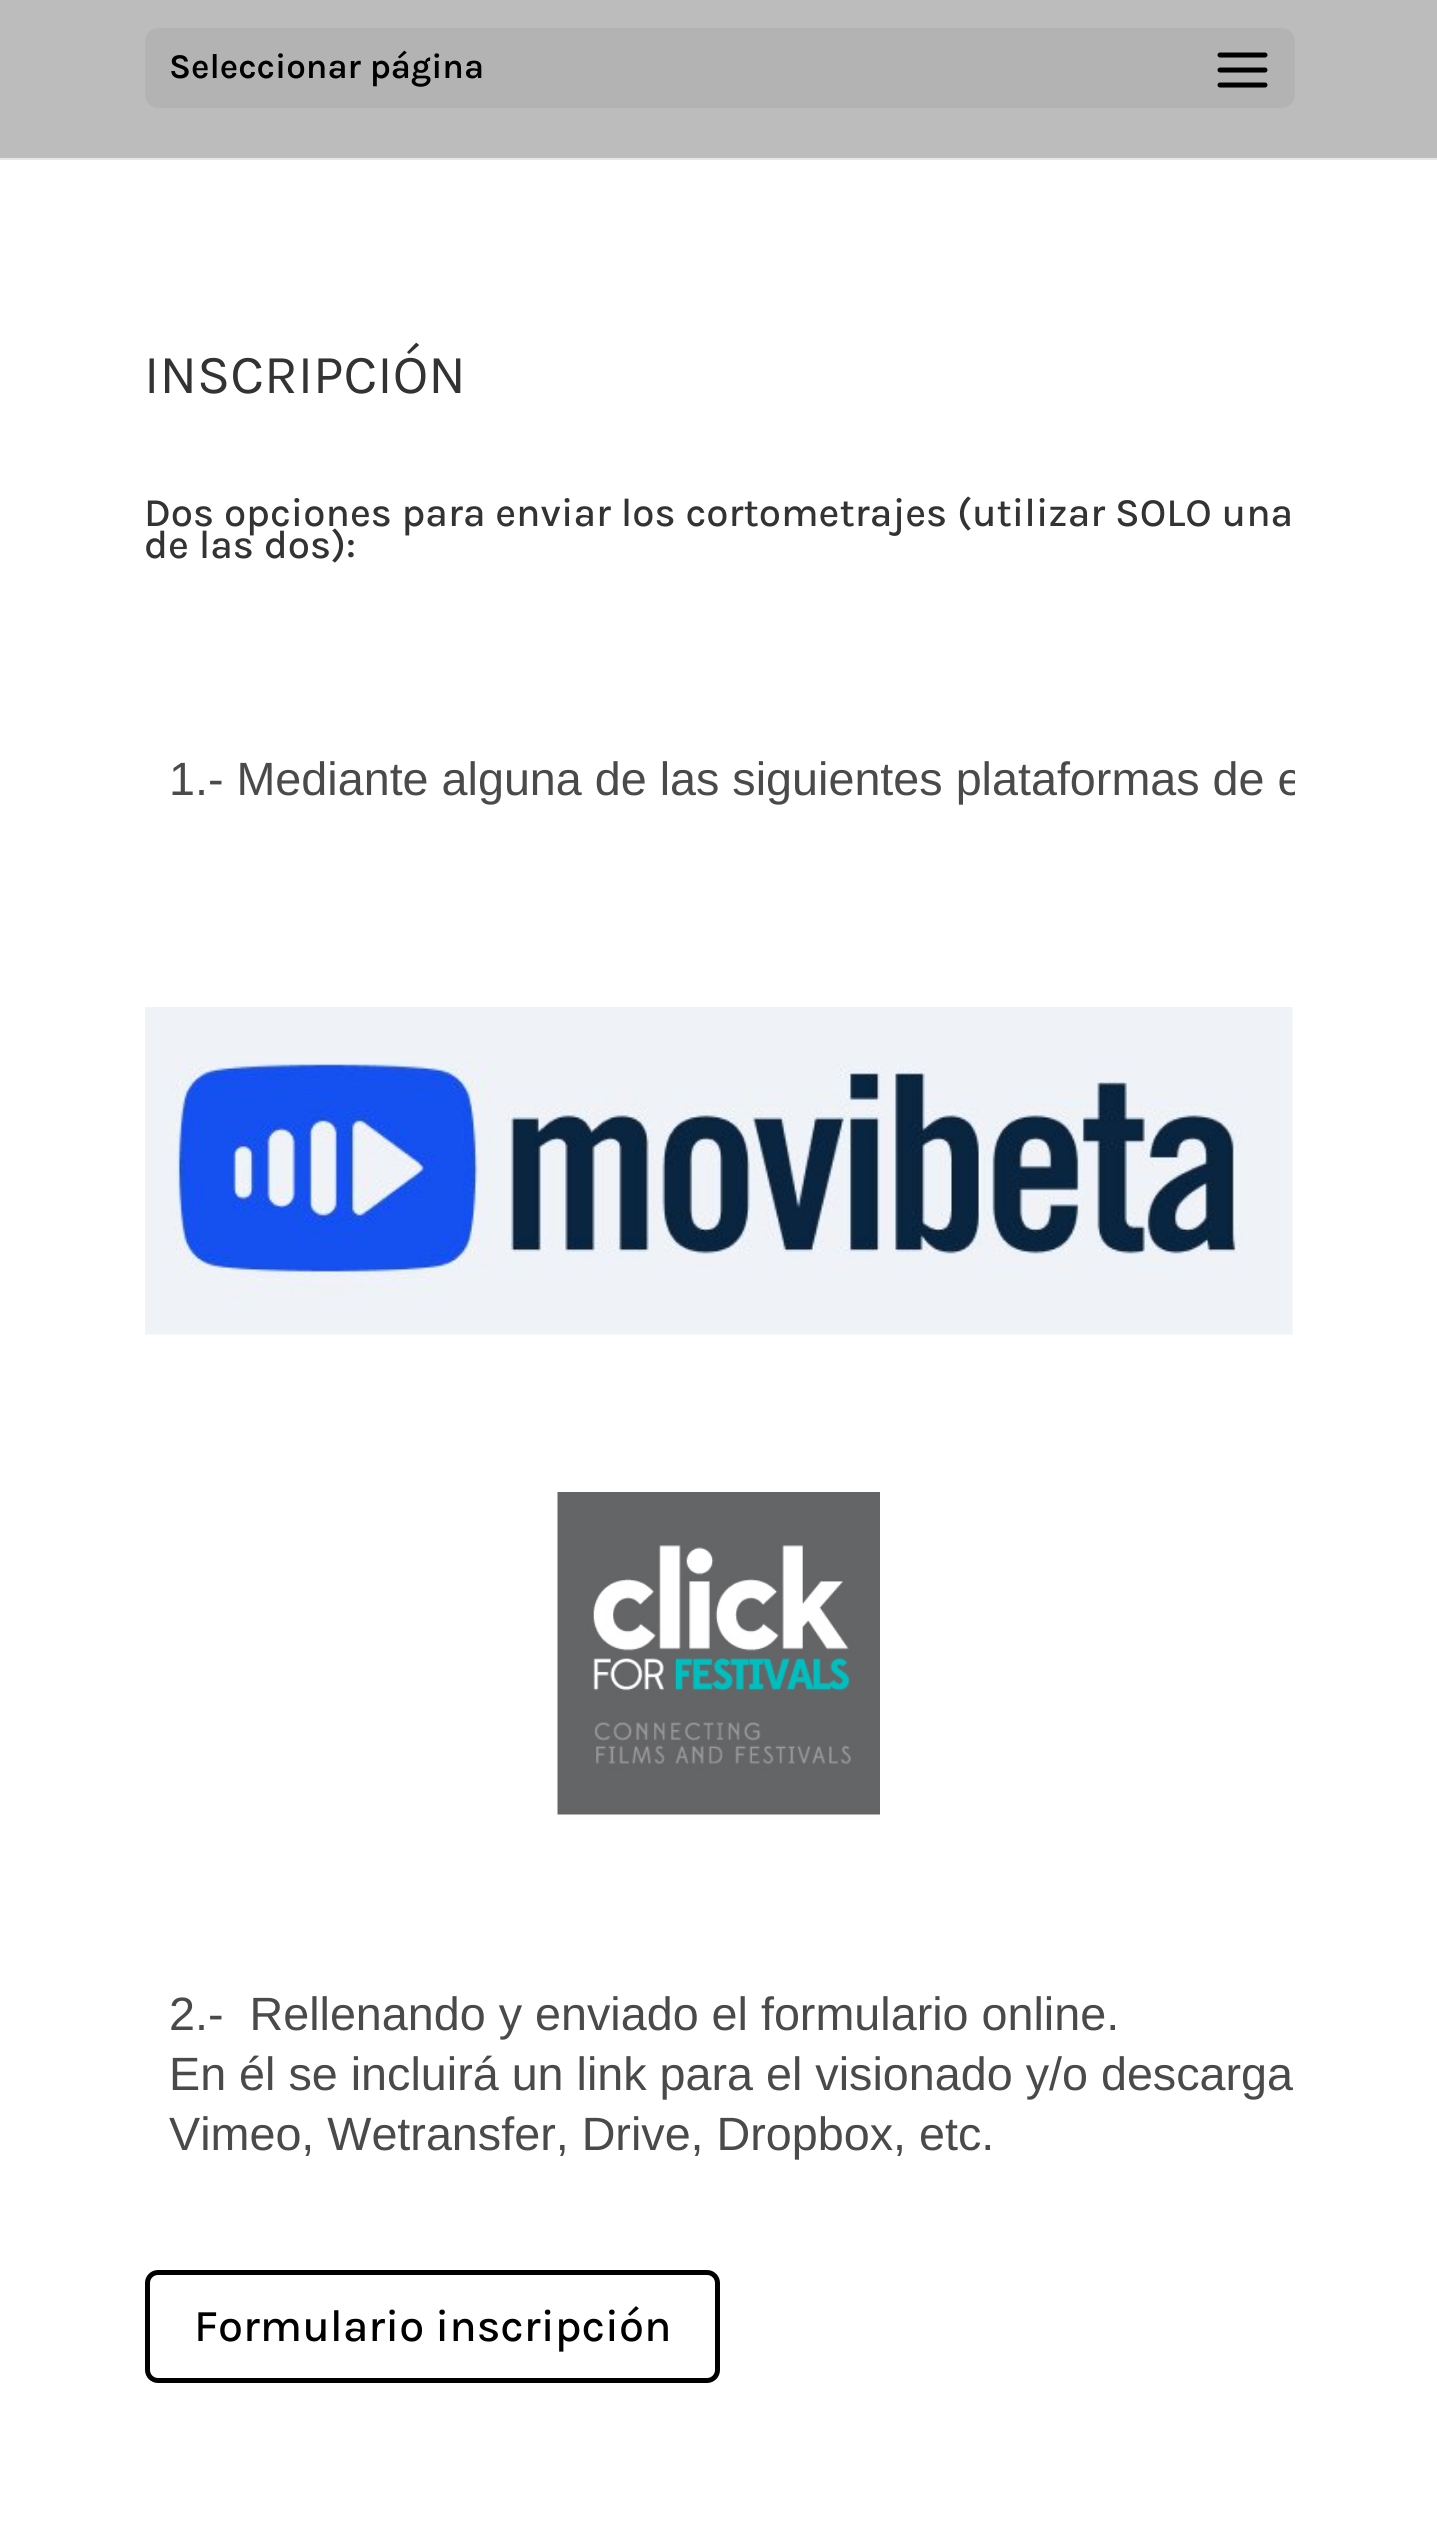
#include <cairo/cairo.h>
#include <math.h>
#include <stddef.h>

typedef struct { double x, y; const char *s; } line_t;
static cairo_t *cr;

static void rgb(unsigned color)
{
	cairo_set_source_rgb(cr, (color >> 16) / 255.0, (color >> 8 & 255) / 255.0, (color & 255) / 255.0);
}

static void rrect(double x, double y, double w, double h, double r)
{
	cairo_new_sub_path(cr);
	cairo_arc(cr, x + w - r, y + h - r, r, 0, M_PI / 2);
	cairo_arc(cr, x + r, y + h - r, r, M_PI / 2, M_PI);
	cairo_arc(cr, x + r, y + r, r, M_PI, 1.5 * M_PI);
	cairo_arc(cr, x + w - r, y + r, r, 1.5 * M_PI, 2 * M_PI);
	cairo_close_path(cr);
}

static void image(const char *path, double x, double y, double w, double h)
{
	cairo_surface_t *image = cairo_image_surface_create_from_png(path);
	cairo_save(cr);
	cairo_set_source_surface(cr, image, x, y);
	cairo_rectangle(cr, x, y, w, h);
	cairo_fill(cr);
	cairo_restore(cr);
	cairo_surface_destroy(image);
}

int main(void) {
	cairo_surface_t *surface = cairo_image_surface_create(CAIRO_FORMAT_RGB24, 1437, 2548);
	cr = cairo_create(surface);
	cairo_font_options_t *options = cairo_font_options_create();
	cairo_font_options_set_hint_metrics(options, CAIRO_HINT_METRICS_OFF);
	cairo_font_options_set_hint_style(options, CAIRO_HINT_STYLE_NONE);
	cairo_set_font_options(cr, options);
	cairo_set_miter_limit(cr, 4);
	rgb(0xffffff);
	cairo_paint(cr);
	rgb(0xe6e6e6);
	cairo_new_path(cr);
	cairo_move_to(cr, 0, 158);
	cairo_line_to(cr, 0, 160);
	cairo_line_to(cr, 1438, 160);
	cairo_line_to(cr, 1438, -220);
	cairo_line_to(cr, 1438, 158);
	cairo_close_path(cr);
	cairo_fill(cr);
	rgb(0xbcbcbc);
	cairo_rectangle(cr, 0, 0, 1437, 158);
	cairo_fill(cr);
	rgb(0xb3b3b3);
	rrect(145, 28, 1150, 80, 13);
	cairo_fill(cr);
	image("img/1.png", 1217, 52, 51, 36);
	image("img/2.png", 145, 1007, 1148, 328);
	image("img/3.png", 557, 1492, 323, 323);
	rrect(147.5, 2272.5, 570, 108, 10.5);
	rgb(0x000000);
	cairo_set_line_width(cr, 5);
	cairo_stroke(cr);
	cairo_select_font_face(cr, "Karla SemiBold", CAIRO_FONT_SLANT_NORMAL, CAIRO_FONT_WEIGHT_NORMAL);
	cairo_set_font_size(cr, 35);
	cairo_move_to(cr, 169, 78);
	cairo_show_text(cr, "Seleccionar página");
	cairo_select_font_face(cr, "Karla", CAIRO_FONT_SLANT_NORMAL, CAIRO_FONT_WEIGHT_NORMAL);
	cairo_set_font_size(cr, 55);
	rgb(0x333333);
	cairo_move_to(cr, 144, 393);
	cairo_show_text(cr, "INSCRIPCIÓN");
	cairo_select_font_face(cr, "Karla Medium", CAIRO_FONT_SLANT_NORMAL, CAIRO_FONT_WEIGHT_NORMAL);
	cairo_set_font_size(cr, 40);
	cairo_move_to(cr, 144, 526);
	cairo_show_text(cr, "Dos opciones para enviar los cortometrajes (utilizar SOLO una");
	cairo_move_to(cr, 144, 558);
	cairo_show_text(cr, "de las dos):");
	cairo_save(cr);
	cairo_rectangle(cr, 145, 738, 1150, 95);
	cairo_clip(cr);
	cairo_select_font_face(cr, "Liberation Sans", CAIRO_FONT_SLANT_NORMAL, CAIRO_FONT_WEIGHT_NORMAL);
	cairo_set_font_size(cr, 46.7);
	rgb(0x4a4a4a);
	cairo_move_to(cr, 169, 795);
	cairo_show_text(cr, "1.- Mediante alguna de las siguientes plataformas de e");
	cairo_restore(cr);
	cairo_select_font_face(cr, "Liberation Sans", CAIRO_FONT_SLANT_NORMAL, CAIRO_FONT_WEIGHT_NORMAL);
	cairo_set_font_size(cr, 46.7);
	rgb(0x4a4a4a);
	{
		static const line_t items[] = {
			{169, 2030, "2.-  Rellenando y enviado el formulario online."},
			{169, 2090, "En él se incluirá un link para el visionado y/o descarga"},
			{169, 2150, "Vimeo, Wetransfer, Drive, Dropbox, etc."},
		};
		for (size_t i = 0; i < sizeof items / sizeof *items; i++) {
			cairo_move_to(cr, items[i].x, items[i].y);
			cairo_show_text(cr, items[i].s);
		}
	}
	cairo_select_font_face(cr, "Karla Medium", CAIRO_FONT_SLANT_NORMAL, CAIRO_FONT_WEIGHT_NORMAL);
	cairo_set_font_size(cr, 45);
	rgb(0x000000);
	cairo_move_to(cr, 194, 2341);
	cairo_show_text(cr, "Formulario inscripción");
	cairo_surface_write_to_png(surface, "page.png");
	cairo_font_options_destroy(options);
	cairo_destroy(cr);
	cairo_surface_destroy(surface);
	return 0;
}
